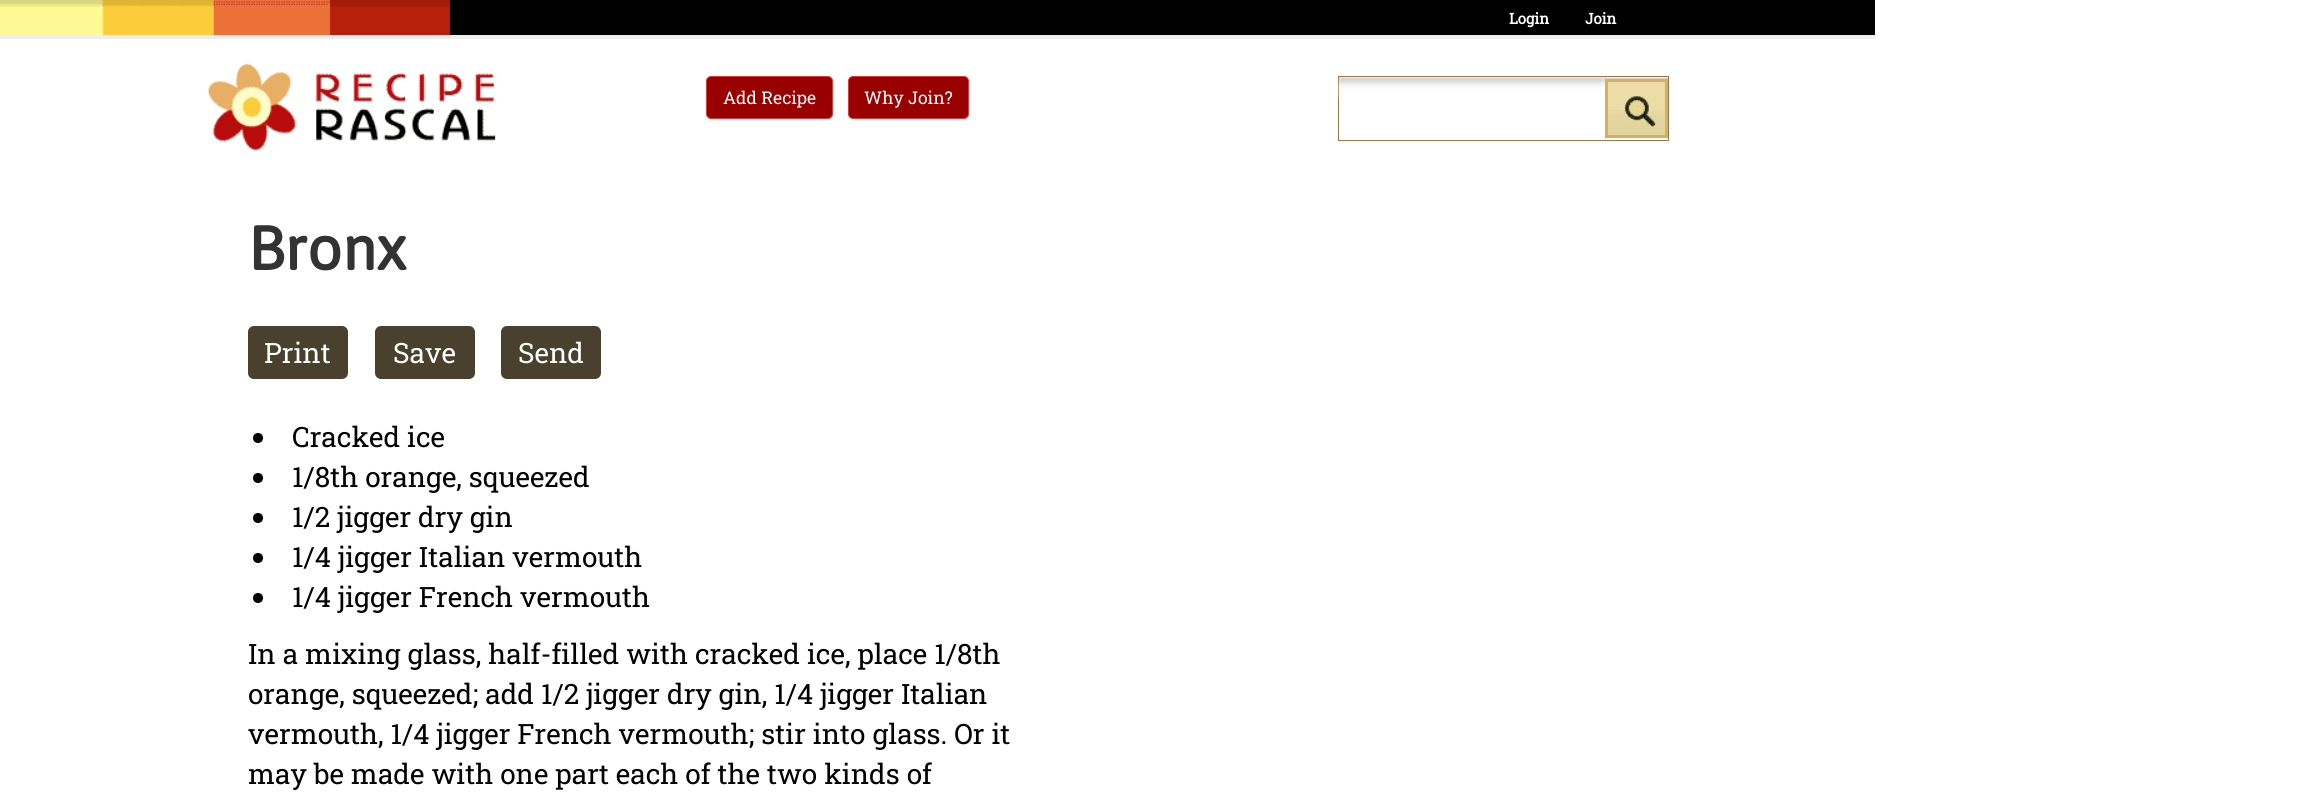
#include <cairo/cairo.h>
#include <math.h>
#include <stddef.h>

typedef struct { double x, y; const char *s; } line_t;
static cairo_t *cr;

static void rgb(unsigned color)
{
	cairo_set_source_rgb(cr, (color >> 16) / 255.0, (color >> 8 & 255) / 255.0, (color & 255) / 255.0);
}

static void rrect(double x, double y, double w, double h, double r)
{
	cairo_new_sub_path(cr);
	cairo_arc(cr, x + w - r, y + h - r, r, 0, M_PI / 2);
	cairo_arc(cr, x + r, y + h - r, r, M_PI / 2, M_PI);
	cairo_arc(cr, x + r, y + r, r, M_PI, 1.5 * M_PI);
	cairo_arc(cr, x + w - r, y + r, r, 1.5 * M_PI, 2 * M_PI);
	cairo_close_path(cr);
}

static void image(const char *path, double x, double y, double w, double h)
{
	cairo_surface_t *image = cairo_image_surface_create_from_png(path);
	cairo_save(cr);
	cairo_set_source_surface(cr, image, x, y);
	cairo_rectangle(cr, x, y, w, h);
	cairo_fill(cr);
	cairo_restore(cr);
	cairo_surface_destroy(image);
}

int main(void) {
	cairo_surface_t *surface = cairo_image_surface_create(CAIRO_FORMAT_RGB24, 2297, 806);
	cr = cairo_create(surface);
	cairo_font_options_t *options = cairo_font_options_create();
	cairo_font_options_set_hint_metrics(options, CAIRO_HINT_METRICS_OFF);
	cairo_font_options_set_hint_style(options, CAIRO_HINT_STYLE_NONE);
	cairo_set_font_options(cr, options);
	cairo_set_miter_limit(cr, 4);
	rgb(0xffffff);
	cairo_paint(cr);
	rgb(0x000000);
	cairo_rectangle(cr, 449, 0, 1426, 35);
	cairo_fill(cr);
	image("img/1.png", 0, 0, 451, 35);
	rgb(0xeeeeee);
	cairo_rectangle(cr, 0, 35, 1875, 4);
	cairo_fill(cr);
	image("img/2.png", 207, 63, 289, 88);
	rgb(0x990000);
	rrect(706.5, 76.5, 126, 42, 4.5);
	cairo_fill_preserve(cr);
	rgb(0xd43f3a);
	cairo_set_line_width(cr, 1);
	cairo_stroke(cr);
	rgb(0x990000);
	rrect(848.5, 76.5, 120, 42, 4.5);
	cairo_fill_preserve(cr);
	rgb(0xd43f3a);
	cairo_stroke(cr);
	image("img/3.png", 1337, 77, 331, 10);
	cairo_rectangle(cr, 1338.5, 76.5, 330, 64);
	rgb(0x9c794b);
	cairo_stroke(cr);
	image("img/4.png", 1338, 78, 263, 20);
	image("img/5.png", 1608, 82, 57, 53);
	cairo_rectangle(cr, 1606.5, 80.5, 60, 56);
	rgb(0xd9ad62);
	cairo_set_line_width(cr, 3);
	cairo_stroke(cr);
	rgb(0x49402d);
	rrect(248, 326, 100, 53, 6);
	cairo_fill(cr);
	rrect(375, 326, 100, 53, 6);
	cairo_fill(cr);
	rrect(501, 326, 100, 53, 6);
	cairo_fill(cr);
	rgb(0x000000);
	cairo_arc(cr, 258, 438, 5, 0, 2 * M_PI);
	cairo_fill(cr);
	cairo_arc(cr, 258, 478, 5, 0, 2 * M_PI);
	cairo_fill(cr);
	cairo_arc(cr, 258, 518, 5, 0, 2 * M_PI);
	cairo_fill(cr);
	cairo_arc(cr, 258, 558, 5, 0, 2 * M_PI);
	cairo_fill(cr);
	cairo_arc(cr, 258, 598, 5, 0, 2 * M_PI);
	cairo_fill(cr);
	cairo_select_font_face(cr, "Roboto Slab", CAIRO_FONT_SLANT_NORMAL, CAIRO_FONT_WEIGHT_BOLD);
	cairo_set_font_size(cr, 15);
	rgb(0xffffff);
	cairo_move_to(cr, 1509, 24);
	cairo_show_text(cr, "Login");
	cairo_move_to(cr, 1585, 24);
	cairo_show_text(cr, "Join");
	cairo_select_font_face(cr, "Roboto Slab", CAIRO_FONT_SLANT_NORMAL, CAIRO_FONT_WEIGHT_NORMAL);
	cairo_set_font_size(cr, 17.5);
	cairo_move_to(cr, 723, 104);
	cairo_show_text(cr, "Add Recipe");
	cairo_move_to(cr, 864, 104);
	cairo_show_text(cr, "Why Join?");
	cairo_select_font_face(cr, "Asap", CAIRO_FONT_SLANT_NORMAL, CAIRO_FONT_WEIGHT_BOLD);
	cairo_set_font_size(cr, 61.5);
	rgb(0x333333);
	cairo_move_to(cr, 248, 270);
	cairo_show_text(cr, "Bronx");
	cairo_select_font_face(cr, "Roboto Slab", CAIRO_FONT_SLANT_NORMAL, CAIRO_FONT_WEIGHT_NORMAL);
	cairo_set_font_size(cr, 28);
	rgb(0xffffff);
	{
		static const line_t items[] = {
			{264, 363, "Print"},
			{393, 363, "Save"},
			{518, 363, "Send"},
		};
		for (size_t i = 0; i < sizeof items / sizeof *items; i++) {
			cairo_move_to(cr, items[i].x, items[i].y);
			cairo_show_text(cr, items[i].s);
		}
	}
	rgb(0x000000);
	{
		static const line_t items[] = {
			{292, 447, "Cracked ice"},
			{292, 487, "1/8th orange, squeezed"},
			{292, 527, "1/2 jigger dry gin"},
			{292, 567, "1/4 jigger Italian vermouth"},
			{292, 607, "1/4 jigger French vermouth"},
			{248, 664, "In a mixing glass, half-filled with cracked ice, place 1/8th"},
			{248, 704, "orange, squeezed; add 1/2 jigger dry gin, 1/4 jigger Italian"},
			{248, 744, "vermouth, 1/4 jigger French vermouth; stir into glass. Or it"},
			{248, 784, "may be made with one part each of the two kinds of"},
		};
		for (size_t i = 0; i < sizeof items / sizeof *items; i++) {
			cairo_move_to(cr, items[i].x, items[i].y);
			cairo_show_text(cr, items[i].s);
		}
	}
	cairo_surface_write_to_png(surface, "page.png");
	cairo_font_options_destroy(options);
	cairo_destroy(cr);
	cairo_surface_destroy(surface);
	return 0;
}
